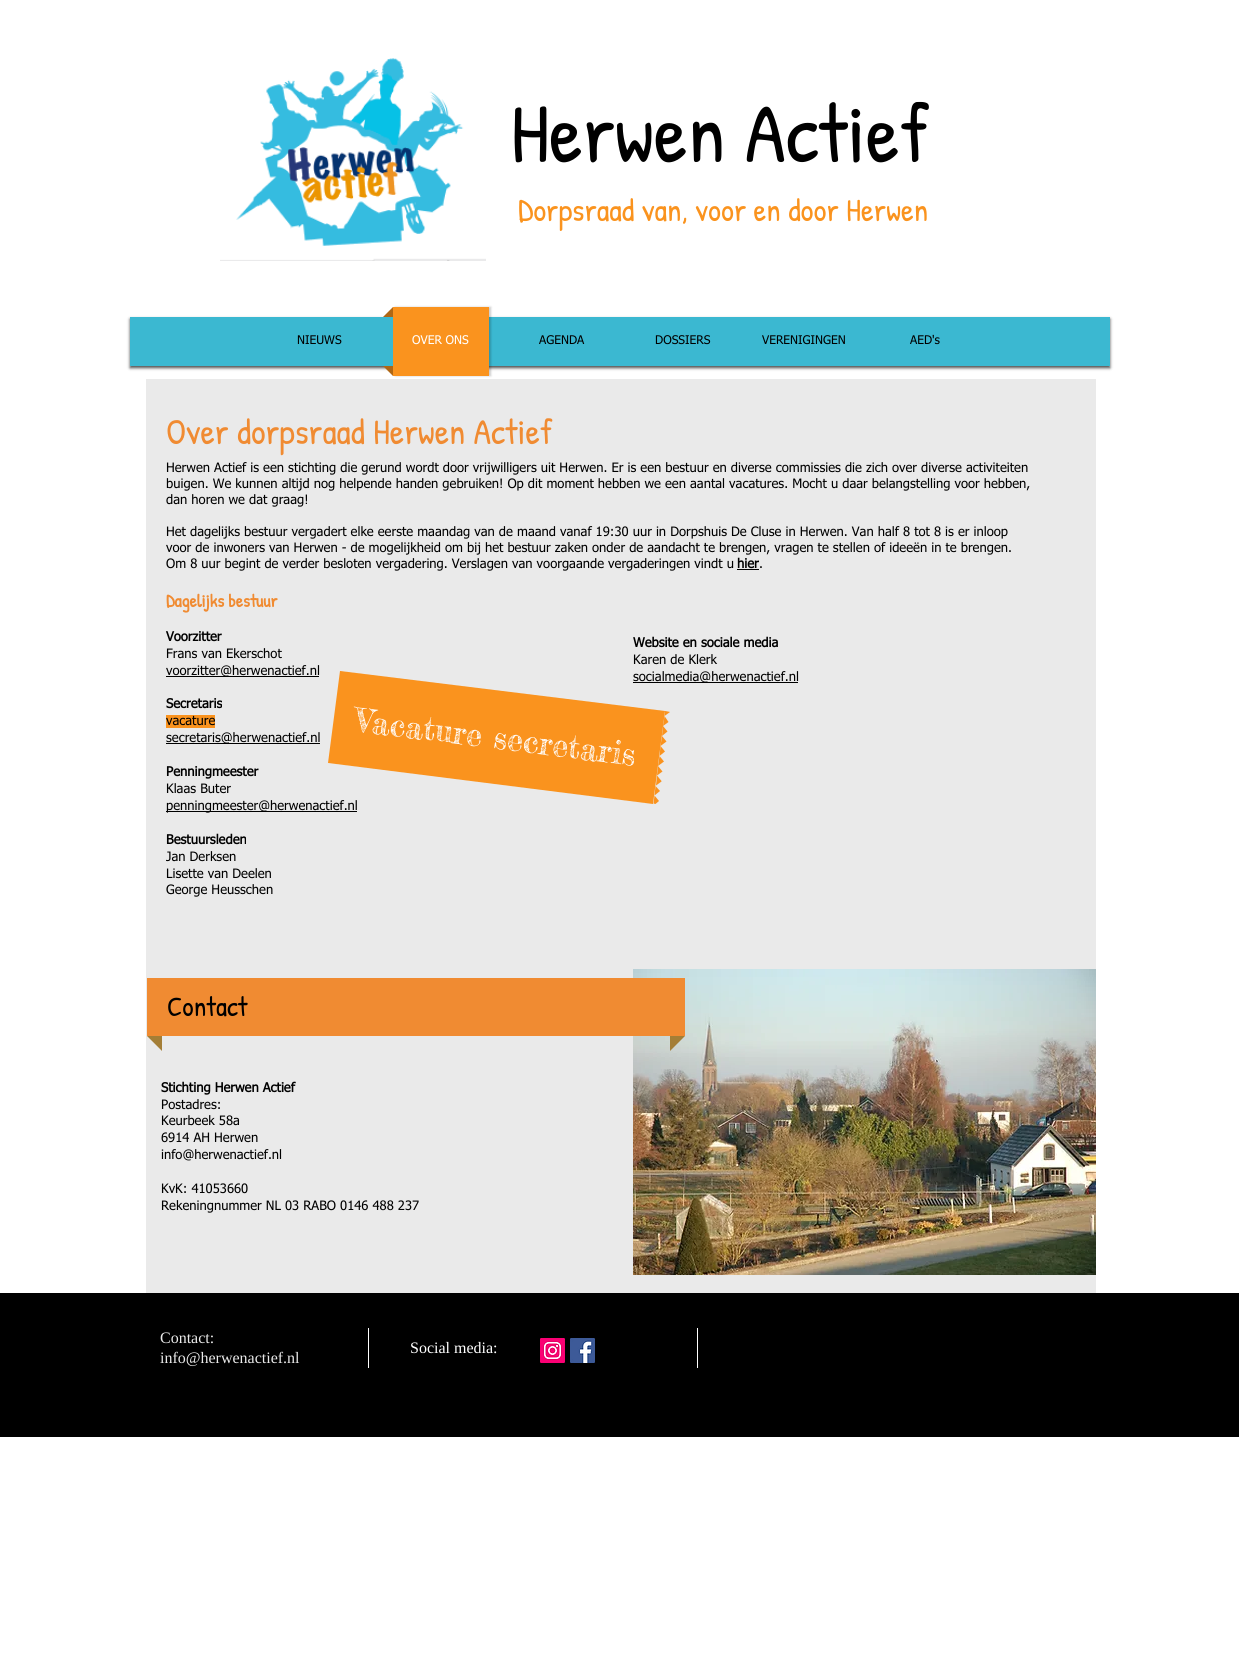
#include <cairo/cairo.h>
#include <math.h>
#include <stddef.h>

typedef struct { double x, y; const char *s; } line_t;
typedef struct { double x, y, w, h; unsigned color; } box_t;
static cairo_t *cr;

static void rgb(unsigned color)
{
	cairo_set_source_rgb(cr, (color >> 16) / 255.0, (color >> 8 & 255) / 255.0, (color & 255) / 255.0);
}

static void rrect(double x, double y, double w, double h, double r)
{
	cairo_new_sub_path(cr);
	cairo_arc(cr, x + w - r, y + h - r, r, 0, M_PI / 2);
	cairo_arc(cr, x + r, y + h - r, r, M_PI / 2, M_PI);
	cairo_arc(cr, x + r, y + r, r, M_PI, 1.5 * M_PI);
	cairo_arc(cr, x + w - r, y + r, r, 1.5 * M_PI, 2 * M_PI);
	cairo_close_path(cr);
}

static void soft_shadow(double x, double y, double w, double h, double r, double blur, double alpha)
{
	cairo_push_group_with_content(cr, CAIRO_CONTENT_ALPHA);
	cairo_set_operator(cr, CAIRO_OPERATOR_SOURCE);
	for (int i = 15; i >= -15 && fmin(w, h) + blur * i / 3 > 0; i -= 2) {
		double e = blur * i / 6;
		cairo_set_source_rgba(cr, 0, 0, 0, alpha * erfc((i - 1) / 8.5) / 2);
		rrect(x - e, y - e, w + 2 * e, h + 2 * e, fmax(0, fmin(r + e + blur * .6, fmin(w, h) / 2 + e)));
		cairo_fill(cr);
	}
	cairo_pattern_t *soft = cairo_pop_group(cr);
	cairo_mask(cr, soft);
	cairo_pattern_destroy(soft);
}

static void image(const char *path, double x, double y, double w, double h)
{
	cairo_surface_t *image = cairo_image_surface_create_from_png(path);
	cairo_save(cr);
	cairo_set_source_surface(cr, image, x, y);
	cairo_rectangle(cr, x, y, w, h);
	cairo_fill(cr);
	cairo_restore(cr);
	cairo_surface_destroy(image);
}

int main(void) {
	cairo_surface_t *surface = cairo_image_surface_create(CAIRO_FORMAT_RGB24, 1239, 1653);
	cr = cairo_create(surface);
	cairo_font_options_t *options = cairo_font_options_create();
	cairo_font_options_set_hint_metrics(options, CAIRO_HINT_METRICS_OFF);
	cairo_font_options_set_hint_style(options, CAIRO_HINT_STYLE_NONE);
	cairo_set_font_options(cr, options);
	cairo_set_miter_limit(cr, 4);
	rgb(0xffffff);
	cairo_paint(cr);
	image("img/1.png", 220, 58, 266, 203);
	rgb(0x000000);
	soft_shadow(130, 319, 980, 49, 0, 1.5, 0.7);
	rgb(0x3bb8d1);
	cairo_rectangle(cr, 130, 317, 980, 49);
	cairo_fill(cr);
	rgb(0x000000);
	soft_shadow(395, 307, 96, 69, 0, 1, 0.2);
	rgb(0xaf6715);
	cairo_new_path(cr);
	cairo_move_to(cr, 393, 317);
	cairo_line_to(cr, 383, 317);
	cairo_line_to(cr, 393, 307);
	cairo_close_path(cr);
	cairo_fill(cr);
	rgb(0xfa931e);
	cairo_rectangle(cr, 393, 307, 96, 69);
	cairo_fill(cr);
	rgb(0xaf6715);
	cairo_new_path(cr);
	cairo_move_to(cr, 383, 366);
	cairo_line_to(cr, 393, 366);
	cairo_line_to(cr, 393, 376);
	cairo_close_path(cr);
	cairo_fill(cr);
	{
		static const box_t items[] = {
			{146, 379, 950, 914, 0xeaeaea},
			{737, 569, 22, 1, 0x000000},
			{166, 676, 153, 1, 0x000000},
			{166, 715, 49, 13, 0xfa931e},
			{166, 743, 154, 1, 0x000000},
			{166, 811, 191, 1, 0x000000},
			{633, 682, 165, 1, 0x000000},
		};
		for (size_t i = 0; i < sizeof items / sizeof *items; i++) {
			rgb(items[i].color);
			cairo_rectangle(cr, items[i].x, items[i].y, items[i].w, items[i].h);
			cairo_fill(cr);
		}
	}
	image("img/2.png", 633, 969, 463, 306);
	rgb(0xf08b32);
	cairo_rectangle(cr, 147, 978, 538, 58);
	cairo_fill(cr);
	rgb(0xa47e36);
	cairo_new_path(cr);
	cairo_move_to(cr, 147, 1036);
	cairo_line_to(cr, 162, 1036);
	cairo_line_to(cr, 162, 1051);
	cairo_close_path(cr);
	cairo_fill(cr);
	cairo_new_path(cr);
	cairo_move_to(cr, 670, 1036);
	cairo_line_to(cr, 685, 1036);
	cairo_line_to(cr, 670, 1051);
	cairo_close_path(cr);
	cairo_fill(cr);
	rgb(0x000000);
	cairo_rectangle(cr, 0, 1293, 1239, 144);
	cairo_fill(cr);
	rgb(0xffffff);
	cairo_rectangle(cr, 368, 1328, 1, 40);
	cairo_fill(cr);
	image("img/3.png", 540, 1338, 25, 25);
	image("img/4.png", 570, 1338, 25, 25);
	cairo_rectangle(cr, 697, 1328, 1, 40);
	cairo_fill(cr);
	cairo_select_font_face(cr, "Patrick Hand", CAIRO_FONT_SLANT_NORMAL, CAIRO_FONT_WEIGHT_NORMAL);
	cairo_set_font_size(cr, 84);
	rgb(0x000000);
	cairo_move_to(cr, 510, 162);
	cairo_show_text(cr, "Herwen Actief");
	cairo_set_font_size(cr, 32);
	rgb(0xfa931e);
	cairo_move_to(cr, 518, 221);
	cairo_show_text(cr, "Dorpsraad van, voor en door Herwen");
	cairo_select_font_face(cr, "tahoma", CAIRO_FONT_SLANT_NORMAL, CAIRO_FONT_WEIGHT_NORMAL);
	cairo_set_font_size(cr, 12);
	rgb(0x000000);
	cairo_move_to(cr, 297, 344);
	cairo_show_text(cr, "NIEUWS");
	rgb(0xffffff);
	cairo_move_to(cr, 412, 344);
	cairo_show_text(cr, "OVER ONS");
	rgb(0x000000);
	{
		static const line_t items[] = {
			{539, 344, "AGENDA"},
			{655, 344, "DOSSIERS"},
			{762, 344, "VERENIGINGEN"},
			{910, 344, "AED's"},
		};
		for (size_t i = 0; i < sizeof items / sizeof *items; i++) {
			cairo_move_to(cr, items[i].x, items[i].y);
			cairo_show_text(cr, items[i].s);
		}
	}
	cairo_select_font_face(cr, "Patrick Hand", CAIRO_FONT_SLANT_NORMAL, CAIRO_FONT_WEIGHT_NORMAL);
	cairo_set_font_size(cr, 36);
	rgb(0xf08b32);
	cairo_move_to(cr, 166, 444);
	cairo_show_text(cr, "Over dorpsraad Herwen Actief");
	cairo_select_font_face(cr, "tahoma", CAIRO_FONT_SLANT_NORMAL, CAIRO_FONT_WEIGHT_NORMAL);
	cairo_set_font_size(cr, 13);
	rgb(0x000000);
	{
		static const line_t items[] = {
			{166, 472, "Herwen Actief is een stichting die gerund wordt door vrijwilligers uit Herwen. Er is een bestuur en diverse commissies die zich over diverse activiteiten"},
			{166, 488, "buigen. We kunnen altijd nog helpende handen gebruiken! Op dit moment hebben we een aantal vacatures. Mocht u daar belangstelling voor hebben,"},
			{166, 504, "dan horen we dat graag!"},
			{166, 536, "Het dagelijks bestuur vergadert elke eerste maandag van de maand vanaf 19:30 uur in Dorpshuis De Cluse in Herwen. Van half 8 tot 8 is er inloop"},
			{166, 552, "voor de inwoners van Herwen - de mogelijkheid om bij het bestuur zaken onder de aandacht te brengen, vragen te stellen of ideeën in te brengen."},
			{166, 568, "Om 8 uur begint de verder besloten vergadering. Verslagen van voorgaande vergaderingen vindt u"},
		};
		for (size_t i = 0; i < sizeof items / sizeof *items; i++) {
			cairo_move_to(cr, items[i].x, items[i].y);
			cairo_show_text(cr, items[i].s);
		}
	}
	cairo_select_font_face(cr, "tahoma", CAIRO_FONT_SLANT_NORMAL, CAIRO_FONT_WEIGHT_BOLD);
	cairo_move_to(cr, 737, 568);
	cairo_show_text(cr, "hier");
	cairo_select_font_face(cr, "tahoma", CAIRO_FONT_SLANT_NORMAL, CAIRO_FONT_WEIGHT_NORMAL);
	cairo_move_to(cr, 759, 568);
	cairo_show_text(cr, ".");
	cairo_select_font_face(cr, "Patrick Hand", CAIRO_FONT_SLANT_NORMAL, CAIRO_FONT_WEIGHT_BOLD);
	cairo_set_font_size(cr, 18);
	rgb(0xf08b32);
	cairo_move_to(cr, 166, 607);
	cairo_show_text(cr, "Dagelijks bestuur");
	cairo_select_font_face(cr, "tahoma", CAIRO_FONT_SLANT_NORMAL, CAIRO_FONT_WEIGHT_BOLD);
	cairo_set_font_size(cr, 13);
	rgb(0x000000);
	cairo_move_to(cr, 166, 641);
	cairo_show_text(cr, "Voorzitter");
	cairo_select_font_face(cr, "tahoma", CAIRO_FONT_SLANT_NORMAL, CAIRO_FONT_WEIGHT_NORMAL);
	cairo_move_to(cr, 166, 658);
	cairo_show_text(cr, "Frans van Ekerschot");
	cairo_move_to(cr, 166, 675);
	cairo_show_text(cr, "voorzitter@herwenactief.nl");
	cairo_select_font_face(cr, "tahoma", CAIRO_FONT_SLANT_NORMAL, CAIRO_FONT_WEIGHT_BOLD);
	cairo_move_to(cr, 166, 708);
	cairo_show_text(cr, "Secretaris");
	cairo_select_font_face(cr, "tahoma", CAIRO_FONT_SLANT_NORMAL, CAIRO_FONT_WEIGHT_NORMAL);
	cairo_move_to(cr, 166, 725);
	cairo_show_text(cr, "vacature");
	cairo_move_to(cr, 166, 742);
	cairo_show_text(cr, "secretaris@herwenactief.nl");
	cairo_select_font_face(cr, "tahoma", CAIRO_FONT_SLANT_NORMAL, CAIRO_FONT_WEIGHT_BOLD);
	cairo_move_to(cr, 166, 776);
	cairo_show_text(cr, "Penningmeester");
	cairo_select_font_face(cr, "tahoma", CAIRO_FONT_SLANT_NORMAL, CAIRO_FONT_WEIGHT_NORMAL);
	cairo_move_to(cr, 166, 793);
	cairo_show_text(cr, "Klaas Buter");
	cairo_move_to(cr, 166, 810);
	cairo_show_text(cr, "penningmeester@herwenactief.nl");
	cairo_select_font_face(cr, "tahoma", CAIRO_FONT_SLANT_NORMAL, CAIRO_FONT_WEIGHT_BOLD);
	cairo_move_to(cr, 166, 844);
	cairo_show_text(cr, "Bestuursleden");
	cairo_select_font_face(cr, "tahoma", CAIRO_FONT_SLANT_NORMAL, CAIRO_FONT_WEIGHT_NORMAL);
	{
		static const line_t items[] = {
			{166, 861, "Jan Derksen"},
			{166, 878, "Lisette van Deelen"},
			{166, 894, "George Heusschen"},
		};
		for (size_t i = 0; i < sizeof items / sizeof *items; i++) {
			cairo_move_to(cr, items[i].x, items[i].y);
			cairo_show_text(cr, items[i].s);
		}
	}
	cairo_select_font_face(cr, "tahoma", CAIRO_FONT_SLANT_NORMAL, CAIRO_FONT_WEIGHT_BOLD);
	cairo_move_to(cr, 633, 647);
	cairo_show_text(cr, "Website en sociale media");
	cairo_select_font_face(cr, "tahoma", CAIRO_FONT_SLANT_NORMAL, CAIRO_FONT_WEIGHT_NORMAL);
	cairo_move_to(cr, 633, 664);
	cairo_show_text(cr, "Karen de Klerk");
	cairo_move_to(cr, 633, 681);
	cairo_show_text(cr, "socialmedia@herwenactief.nl");
	rgb(0xfa931e);
	cairo_new_path(cr);
	cairo_move_to(cr, 340, 671);
	cairo_line_to(cr, 665, 711);
	cairo_line_to(cr, 653, 804);
	cairo_line_to(cr, 328, 763);
	cairo_close_path(cr);
	cairo_fill(cr);
	cairo_select_font_face(cr, "Fredericka the Great", CAIRO_FONT_SLANT_NORMAL, CAIRO_FONT_WEIGHT_NORMAL);
	cairo_set_font_size(cr, 32);
	rgb(0xffffff);
	cairo_save(cr);
	cairo_translate(cr, 355, 731);
	cairo_rotate(cr, 7.1 * M_PI / 180);
	cairo_move_to(cr, 0, 0);
	cairo_show_text(cr, "Vacature secretaris");
	cairo_restore(cr);
	rgb(0xfa931e);
	cairo_new_path(cr);
	cairo_move_to(cr, 664.5, 716);
	cairo_line_to(cr, 670, 712);
	cairo_line_to(cr, 665, 711);
	cairo_line_to(cr, 665, 712);
	cairo_close_path(cr);
	cairo_move_to(cr, 663, 726);
	cairo_line_to(cr, 664.5, 716);
	cairo_line_to(cr, 668.5, 722);
	cairo_close_path(cr);
	cairo_move_to(cr, 662, 736);
	cairo_line_to(cr, 663, 726);
	cairo_line_to(cr, 667.5, 731.5);
	cairo_close_path(cr);
	cairo_move_to(cr, 660.5, 746);
	cairo_line_to(cr, 662, 736);
	cairo_line_to(cr, 666.5, 741.5);
	cairo_close_path(cr);
	cairo_move_to(cr, 659.5, 756);
	cairo_line_to(cr, 660.5, 746);
	cairo_line_to(cr, 665, 751.5);
	cairo_close_path(cr);
	cairo_move_to(cr, 658, 766);
	cairo_line_to(cr, 659.5, 756);
	cairo_line_to(cr, 664, 761.5);
	cairo_close_path(cr);
	cairo_fill(cr);
	cairo_new_path(cr);
	cairo_move_to(cr, 657, 775.5);
	cairo_line_to(cr, 658, 766);
	cairo_line_to(cr, 662.5, 771.5);
	cairo_close_path(cr);
	cairo_fill(cr);
	cairo_new_path(cr);
	cairo_move_to(cr, 656, 785.5);
	cairo_line_to(cr, 657, 775.5);
	cairo_line_to(cr, 661.5, 781);
	cairo_line_to(cr, 661.5, 781.5);
	cairo_close_path(cr);
	cairo_move_to(cr, 654.5, 795.5);
	cairo_line_to(cr, 655.5, 786);
	cairo_line_to(cr, 660, 791);
	cairo_close_path(cr);
	cairo_fill(cr);
	cairo_new_path(cr);
	cairo_move_to(cr, 655.5, 804);
	cairo_line_to(cr, 653.5, 803.5);
	cairo_line_to(cr, 654.5, 795.5);
	cairo_line_to(cr, 659, 801);
	cairo_close_path(cr);
	cairo_fill(cr);
	cairo_select_font_face(cr, "Patrick Hand", CAIRO_FONT_SLANT_NORMAL, CAIRO_FONT_WEIGHT_NORMAL);
	cairo_set_font_size(cr, 28);
	rgb(0x000000);
	cairo_move_to(cr, 167, 1016);
	cairo_show_text(cr, "Contact");
	cairo_select_font_face(cr, "tahoma", CAIRO_FONT_SLANT_NORMAL, CAIRO_FONT_WEIGHT_BOLD);
	cairo_set_font_size(cr, 13);
	cairo_move_to(cr, 161, 1092);
	cairo_show_text(cr, "Stichting Herwen Actief");
	cairo_select_font_face(cr, "tahoma", CAIRO_FONT_SLANT_NORMAL, CAIRO_FONT_WEIGHT_NORMAL);
	{
		static const line_t items[] = {
			{161, 1109, "Postadres:"},
			{161, 1125, "Keurbeek 58a"},
			{161, 1142, "6914 AH Herwen"},
			{161, 1159, "info@herwenactief.nl"},
			{161, 1193, "KvK: 41053660"},
			{161, 1210, "Rekeningnummer NL 03 RABO 0146 488 237"},
		};
		for (size_t i = 0; i < sizeof items / sizeof *items; i++) {
			cairo_move_to(cr, items[i].x, items[i].y);
			cairo_show_text(cr, items[i].s);
		}
	}
	cairo_select_font_face(cr, "Liberation Serif", CAIRO_FONT_SLANT_NORMAL, CAIRO_FONT_WEIGHT_NORMAL);
	cairo_set_font_size(cr, 16);
	rgb(0xeaeaea);
	cairo_move_to(cr, 160, 1343);
	cairo_show_text(cr, "Contact:");
	cairo_move_to(cr, 160, 1363);
	cairo_show_text(cr, "info@herwenactief.nl");
	rgb(0xffffff);
	cairo_move_to(cr, 410, 1353);
	cairo_show_text(cr, "Social media:");
	cairo_surface_write_to_png(surface, "page.png");
	cairo_font_options_destroy(options);
	cairo_destroy(cr);
	cairo_surface_destroy(surface);
	return 0;
}
